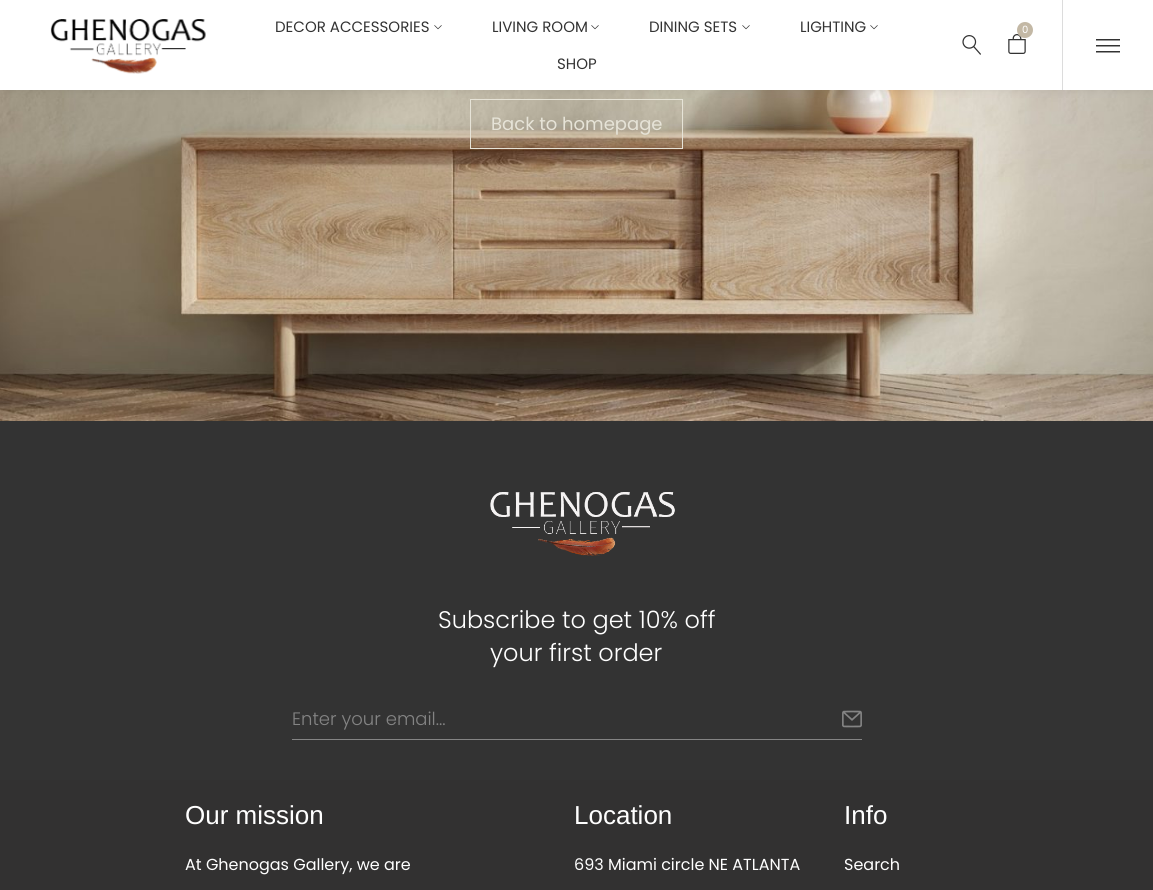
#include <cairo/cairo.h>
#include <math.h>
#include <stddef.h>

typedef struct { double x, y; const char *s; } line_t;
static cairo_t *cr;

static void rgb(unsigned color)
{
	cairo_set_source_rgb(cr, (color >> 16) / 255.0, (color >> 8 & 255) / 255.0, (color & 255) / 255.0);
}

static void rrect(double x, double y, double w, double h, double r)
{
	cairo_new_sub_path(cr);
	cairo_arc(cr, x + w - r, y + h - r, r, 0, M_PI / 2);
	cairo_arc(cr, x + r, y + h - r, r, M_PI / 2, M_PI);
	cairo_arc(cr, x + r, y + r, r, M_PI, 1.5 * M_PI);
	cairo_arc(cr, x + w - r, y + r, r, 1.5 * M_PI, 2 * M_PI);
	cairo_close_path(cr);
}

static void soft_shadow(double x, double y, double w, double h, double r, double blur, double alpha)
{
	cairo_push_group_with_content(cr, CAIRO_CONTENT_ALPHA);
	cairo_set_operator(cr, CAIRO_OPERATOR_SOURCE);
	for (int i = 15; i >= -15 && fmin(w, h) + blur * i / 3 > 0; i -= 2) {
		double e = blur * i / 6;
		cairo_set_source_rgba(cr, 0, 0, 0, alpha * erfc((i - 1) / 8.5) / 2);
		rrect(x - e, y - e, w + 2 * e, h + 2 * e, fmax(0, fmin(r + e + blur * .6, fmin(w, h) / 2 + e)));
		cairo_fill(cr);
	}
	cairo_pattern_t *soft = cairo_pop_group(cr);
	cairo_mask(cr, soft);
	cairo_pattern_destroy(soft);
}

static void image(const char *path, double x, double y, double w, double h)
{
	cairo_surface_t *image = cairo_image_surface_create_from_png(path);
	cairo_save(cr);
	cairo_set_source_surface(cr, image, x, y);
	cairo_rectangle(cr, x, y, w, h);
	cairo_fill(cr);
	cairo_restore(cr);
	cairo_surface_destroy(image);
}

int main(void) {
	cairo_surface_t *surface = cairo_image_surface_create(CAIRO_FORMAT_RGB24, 1153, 890);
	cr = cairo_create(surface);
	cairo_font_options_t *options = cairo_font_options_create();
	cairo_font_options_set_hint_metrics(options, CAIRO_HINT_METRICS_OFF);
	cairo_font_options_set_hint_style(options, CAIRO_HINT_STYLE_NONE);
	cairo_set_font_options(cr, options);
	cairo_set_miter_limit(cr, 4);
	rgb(0xffffff);
	cairo_paint(cr);
	image("img/6.png", 0, 90, 1153, 331);
	cairo_rectangle(cr, 470.5, 99.5, 212, 49);
	rgb(0xe6e3d7);
	cairo_set_line_width(cr, 1);
	cairo_stroke(cr);
	rgb(0x000000);
	soft_shadow(0, 2, 1153, 90, 0, 4, 0.05);
	rgb(0xffffff);
	cairo_rectangle(cr, 0, 0, 1153, 90);
	cairo_fill(cr);
	image("img/1.png", 50, 19, 156, 55);
	image("img/2.png", 434, 25, 8, 5);
	image("img/2.png", 591, 25, 8, 5);
	image("img/2.png", 742, 25, 8, 5);
	image("img/2.png", 870, 25, 8, 5);
	image("img/3.png", 1008, 34, 18, 20);
	rgb(0xc3b8a5);
	cairo_arc(cr, 1025, 30, 8, 0, 2 * M_PI);
	cairo_fill(cr);
	rgb(0xdcdcdc);
	cairo_rectangle(cr, 1062, 0, 1, 90);
	cairo_fill(cr);
	image("img/4.png", 1096, 39, 24, 14);
	image("img/5.png", 962, 35, 19, 20);
	rgb(0x333333);
	cairo_rectangle(cr, 0, 421, 1153, 359);
	cairo_fill(cr);
	image("img/7.png", 490, 492, 185, 64);
	rgb(0x848484);
	cairo_rectangle(cr, 292, 739, 570, 1);
	cairo_fill(cr);
	image("img/8.png", 842, 710, 20, 18);
	rgb(0x323131);
	cairo_rectangle(cr, 0, 780, 1153, 110);
	cairo_fill(cr);
	cairo_select_font_face(cr, "Poppins", CAIRO_FONT_SLANT_NORMAL, CAIRO_FONT_WEIGHT_NORMAL);
	cairo_set_font_size(cr, 15);
	rgb(0x333333);
	{
		static const line_t items[] = {
			{275, 32, "DECOR ACCESSORIES"},
			{492, 32, "LIVING ROOM"},
			{649, 32, "DINING SETS"},
			{800, 32, "LIGHTING"},
			{557, 69, "SHOP"},
		};
		for (size_t i = 0; i < sizeof items / sizeof *items; i++) {
			cairo_move_to(cr, items[i].x, items[i].y);
			cairo_show_text(cr, items[i].s);
		}
	}
	cairo_set_font_size(cr, 10);
	rgb(0xffffff);
	cairo_move_to(cr, 1022, 33);
	cairo_show_text(cr, "0");
	cairo_set_font_size(cr, 18);
	rgb(0xe6e3d7);
	cairo_move_to(cr, 491, 130);
	cairo_show_text(cr, "Back to homepage");
	cairo_select_font_face(cr, "Poppins Light", CAIRO_FONT_SLANT_NORMAL, CAIRO_FONT_WEIGHT_NORMAL);
	cairo_set_font_size(cr, 24);
	rgb(0xffffff);
	cairo_move_to(cr, 438, 628);
	cairo_show_text(cr, "Subscribe to get 10% off");
	cairo_move_to(cr, 490, 661);
	cairo_show_text(cr, "your first order");
	cairo_set_font_size(cr, 18);
	rgb(0x848484);
	cairo_move_to(cr, 292, 725);
	cairo_show_text(cr, "Enter your email...");
	cairo_select_font_face(cr, "Liberation Sans", CAIRO_FONT_SLANT_NORMAL, CAIRO_FONT_WEIGHT_NORMAL);
	cairo_set_font_size(cr, 26);
	rgb(0xffffff);
	cairo_move_to(cr, 185, 824);
	cairo_show_text(cr, "Our mission");
	cairo_select_font_face(cr, "Poppins", CAIRO_FONT_SLANT_NORMAL, CAIRO_FONT_WEIGHT_NORMAL);
	cairo_set_font_size(cr, 16);
	cairo_move_to(cr, 185, 870);
	cairo_show_text(cr, "At Ghenogas Gallery, we are");
	cairo_select_font_face(cr, "Liberation Sans", CAIRO_FONT_SLANT_NORMAL, CAIRO_FONT_WEIGHT_NORMAL);
	cairo_set_font_size(cr, 26);
	cairo_move_to(cr, 574, 824);
	cairo_show_text(cr, "Location");
	cairo_select_font_face(cr, "Poppins", CAIRO_FONT_SLANT_NORMAL, CAIRO_FONT_WEIGHT_NORMAL);
	cairo_set_font_size(cr, 16);
	cairo_move_to(cr, 574, 870);
	cairo_show_text(cr, "693 Miami circle NE ATLANTA");
	cairo_select_font_face(cr, "Liberation Sans", CAIRO_FONT_SLANT_NORMAL, CAIRO_FONT_WEIGHT_NORMAL);
	cairo_set_font_size(cr, 26);
	cairo_move_to(cr, 844, 824);
	cairo_show_text(cr, "Info");
	cairo_select_font_face(cr, "Poppins", CAIRO_FONT_SLANT_NORMAL, CAIRO_FONT_WEIGHT_NORMAL);
	cairo_set_font_size(cr, 16);
	cairo_move_to(cr, 844, 870);
	cairo_show_text(cr, "Search");
	cairo_surface_write_to_png(surface, "page.png");
	cairo_font_options_destroy(options);
	cairo_destroy(cr);
	cairo_surface_destroy(surface);
	return 0;
}
